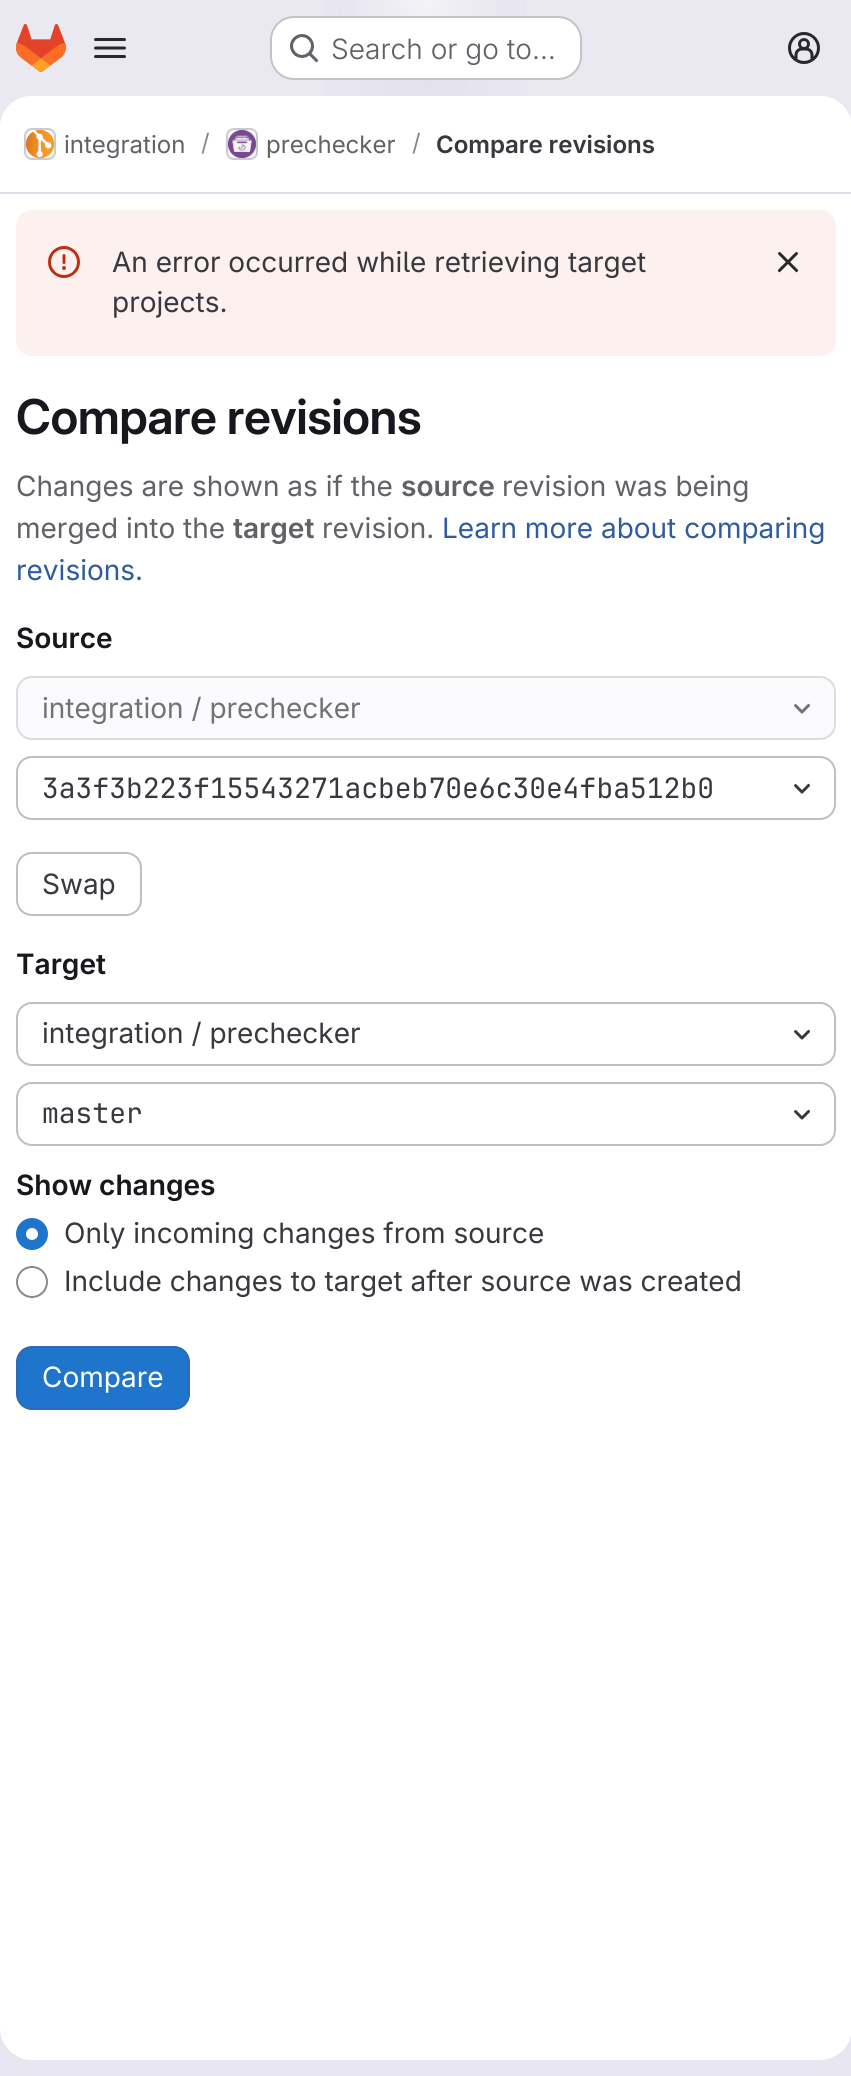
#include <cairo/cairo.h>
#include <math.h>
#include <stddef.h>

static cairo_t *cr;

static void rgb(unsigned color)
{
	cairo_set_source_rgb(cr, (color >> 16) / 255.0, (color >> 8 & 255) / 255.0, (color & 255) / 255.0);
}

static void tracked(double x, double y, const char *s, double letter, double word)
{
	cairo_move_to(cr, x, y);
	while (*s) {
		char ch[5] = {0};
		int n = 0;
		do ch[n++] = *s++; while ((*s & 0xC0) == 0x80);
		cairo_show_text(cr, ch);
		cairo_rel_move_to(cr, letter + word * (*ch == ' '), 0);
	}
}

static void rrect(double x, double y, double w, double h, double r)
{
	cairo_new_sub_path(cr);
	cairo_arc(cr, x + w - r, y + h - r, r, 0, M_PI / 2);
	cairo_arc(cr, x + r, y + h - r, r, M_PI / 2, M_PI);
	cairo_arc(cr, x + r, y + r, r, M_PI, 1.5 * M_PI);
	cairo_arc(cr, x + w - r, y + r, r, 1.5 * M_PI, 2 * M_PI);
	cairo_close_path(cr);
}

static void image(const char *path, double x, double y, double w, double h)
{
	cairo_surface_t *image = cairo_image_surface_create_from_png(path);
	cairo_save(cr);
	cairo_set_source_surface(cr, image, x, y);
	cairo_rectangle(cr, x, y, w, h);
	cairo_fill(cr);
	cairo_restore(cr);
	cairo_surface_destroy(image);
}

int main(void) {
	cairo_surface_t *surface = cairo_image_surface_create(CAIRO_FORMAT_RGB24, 851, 2076);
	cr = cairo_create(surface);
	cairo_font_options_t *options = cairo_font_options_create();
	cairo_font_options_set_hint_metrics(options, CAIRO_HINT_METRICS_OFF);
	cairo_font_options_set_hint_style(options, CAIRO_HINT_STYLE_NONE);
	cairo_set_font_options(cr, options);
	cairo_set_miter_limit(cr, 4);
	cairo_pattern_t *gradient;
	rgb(0xffffff);
	cairo_paint(cr);
	gradient = cairo_pattern_create_linear(616, 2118, 236, -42);
	cairo_pattern_add_color_stop_rgba(gradient, 0, 0.91, 0.902, 0.941, 1);
	cairo_pattern_add_color_stop_rgba(gradient, 0.7, 0.918, 0.914, 0.949, 1);
	cairo_set_source(cr, gradient);
	cairo_pattern_destroy(gradient);
	cairo_rectangle(cr, 0, 0, 851, 2076);
	cairo_fill(cr);
	gradient = cairo_pattern_create_radial(0, 0, 0, 0, 0, 1);
	cairo_pattern_set_matrix(gradient, &(cairo_matrix_t){1.0 / 426, 0, 0, 1.0 / 2076, -1.0 * 426 / 426, -1.0 * 0 / 2076});
	cairo_pattern_add_color_stop_rgba(gradient, 0, 0.894, 0.886, 0.929, 1);
	cairo_pattern_add_color_stop_rgba(gradient, 0.33, 0.894, 0.886, 0.929, 0);
	cairo_set_source(cr, gradient);
	cairo_pattern_destroy(gradient);
	cairo_rectangle(cr, 325, 0, 202, 96);
	cairo_fill(cr);
	gradient = cairo_pattern_create_radial(0, 0, 0, 0, 0, 1);
	cairo_pattern_set_matrix(gradient, &(cairo_matrix_t){1.0 / 426, 0, 0, 1.0 / 2076, -1.0 * 426 / 426, -1.0 * 0 / 2076});
	cairo_pattern_add_color_stop_rgba(gradient, 0, 0.894, 0.886, 0.925, 1);
	cairo_pattern_add_color_stop_rgba(gradient, 0.23, 0.894, 0.886, 0.925, 0);
	cairo_set_source(cr, gradient);
	cairo_pattern_destroy(gradient);
	cairo_rectangle(cr, 386, 5, 80, 88);
	cairo_fill(cr);
	gradient = cairo_pattern_create_radial(426, 0, 0, 426, 0, 2119);
	cairo_pattern_add_color_stop_rgba(gradient, 0, 1, 1, 1, 0.6);
	cairo_pattern_add_color_stop_rgba(gradient, 0.04, 1, 1, 1, 0);
	cairo_set_source(cr, gradient);
	cairo_pattern_destroy(gradient);
	cairo_rectangle(cr, 356, 0, 140, 72);
	cairo_fill(cr);
	image("img/1.png", 16, 24, 50, 48);
	image("img/2.png", 94, 38, 32, 20);
	rgb(0xffffff);
	rrect(270, 16, 312, 64, 24);
	cairo_fill(cr);
	rrect(271, 17, 310, 62, 23);
	cairo_set_source_rgba(cr, 0.02, 0.02, 0.024, 0.24);
	cairo_stroke(cr);
	image("img/3.png", 290, 34, 29, 29);
	image("img/4.png", 788, 32, 32, 32);
	rgb(0xffffff);
	rrect(0, 96, 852, 1964, 32);
	cairo_fill(cr);
	cairo_new_path(cr);
	cairo_move_to(cr, 32, 96);
	cairo_line_to(cr, 820, 96);
	cairo_curve_to(cr, 837.5, 96, 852, 110.5, 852, 128);
	cairo_line_to(cr, 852, 194);
	cairo_line_to(cr, 0, 194);
	cairo_line_to(cr, 0, 128);
	cairo_curve_to(cr, 0, 110.5, 14.5, 96, 32, 96);
	cairo_close_path(cr);
	cairo_fill(cr);
	rgb(0xe1dfec);
	cairo_rectangle(cr, 0, 192, 851, 2);
	cairo_fill(cr);
	rrect(25, 129, 30, 30, 7);
	rgb(0xdcdcde);
	cairo_stroke(cr);
	image("img/5.png", 26, 130, 28, 28);
	rrect(25, 129, 30, 30, 7);
	cairo_set_source_rgba(cr, 0.02, 0.02, 0.024, 0.08);
	cairo_stroke(cr);
	rrect(227, 129, 30, 30, 7);
	rgb(0xdcdcde);
	cairo_stroke(cr);
	image("img/6.png", 228, 130, 28, 28);
	rrect(227, 129, 30, 30, 7);
	cairo_set_source_rgba(cr, 0.02, 0.02, 0.024, 0.08);
	cairo_stroke(cr);
	rgb(0xfcf1ef);
	rrect(16, 210, 820, 146, 16);
	cairo_fill(cr);
	image("img/7.png", 48, 246, 32, 32);
	image("img/8.png", 777, 252, 22, 21);
	rgb(0xfbfafd);
	rrect(17, 677, 818, 62, 15);
	cairo_fill_preserve(cr);
	rgb(0xdcdcde);
	cairo_stroke(cr);
	image("img/9.png", 794, 703, 16, 11);
	rrect(17, 757, 818, 62, 15);
	rgb(0xbfbfc3);
	cairo_stroke(cr);
	image("img/10.png", 794, 783, 17, 11);
	rrect(17, 853, 124, 62, 15);
	cairo_stroke(cr);
	rrect(17, 1003, 818, 62, 15);
	cairo_stroke(cr);
	image("img/10.png", 794, 1029, 17, 11);
	rrect(17, 1083, 818, 62, 15);
	cairo_stroke(cr);
	image("img/10.png", 794, 1109, 17, 11);
	rgb(0x1f75cb);
	cairo_arc(cr, 32, 1234, 15, 0, 2 * M_PI);
	cairo_fill_preserve(cr);
	cairo_stroke(cr);
	rgb(0xffffff);
	cairo_arc(cr, 32, 1234, 6, 0, 2 * M_PI);
	cairo_fill(cr);
	cairo_arc(cr, 32, 1282, 15, 0, 2 * M_PI);
	rgb(0x89888d);
	cairo_stroke(cr);
	rgb(0x1f75cb);
	rrect(17, 1347, 172, 62, 15);
	cairo_fill_preserve(cr);
	rgb(0x2f68b4);
	cairo_stroke(cr);
	cairo_select_font_face(cr, "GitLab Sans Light", CAIRO_FONT_SLANT_NORMAL, CAIRO_FONT_WEIGHT_NORMAL);
	cairo_set_font_size(cr, 28);
	rgb(0x626168);
	cairo_move_to(cr, 331, 59);
	cairo_show_text(cr, "Search or go to…");
	cairo_select_font_face(cr, "GitLab Sans", CAIRO_FONT_SLANT_NORMAL, CAIRO_FONT_WEIGHT_NORMAL);
	cairo_set_font_size(cr, 24);
	cairo_move_to(cr, 64, 153);
	cairo_show_text(cr, "integration");
	rgb(0x89888d);
	cairo_move_to(cr, 201, 151);
	cairo_show_text(cr, "/");
	rgb(0x626168);
	cairo_move_to(cr, 266, 153);
	cairo_show_text(cr, "prechecker");
	rgb(0x89888d);
	cairo_move_to(cr, 412, 151);
	cairo_show_text(cr, "/");
	cairo_select_font_face(cr, "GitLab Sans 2 SemiBold", CAIRO_FONT_SLANT_NORMAL, CAIRO_FONT_WEIGHT_NORMAL);
	rgb(0x3a383f);
	cairo_move_to(cr, 436, 153);
	cairo_show_text(cr, "Compare revisions");
	cairo_select_font_face(cr, "GitLab Sans", CAIRO_FONT_SLANT_NORMAL, CAIRO_FONT_WEIGHT_NORMAL);
	cairo_set_font_size(cr, 28);
	cairo_move_to(cr, 112, 272);
	cairo_show_text(cr, "An error occurred while retrieving target");
	cairo_move_to(cr, 112, 312);
	cairo_show_text(cr, "projects.");
	cairo_select_font_face(cr, "GitLab Sans SemiBold", CAIRO_FONT_SLANT_NORMAL, CAIRO_FONT_WEIGHT_NORMAL);
	cairo_set_font_size(cr, 48);
	rgb(0x18171d);
	tracked(16, 434, "Compare revisions", -0.5, 0);
	cairo_select_font_face(cr, "GitLab Sans", CAIRO_FONT_SLANT_NORMAL, CAIRO_FONT_WEIGHT_NORMAL);
	cairo_set_font_size(cr, 28);
	rgb(0x626168);
	cairo_move_to(cr, 16, 496);
	cairo_show_text(cr, "Changes are shown as if the");
	cairo_select_font_face(cr, "GitLab Sans 2 SemiBold", CAIRO_FONT_SLANT_NORMAL, CAIRO_FONT_WEIGHT_NORMAL);
	cairo_move_to(cr, 401, 496);
	cairo_show_text(cr, "source");
	cairo_select_font_face(cr, "GitLab Sans", CAIRO_FONT_SLANT_NORMAL, CAIRO_FONT_WEIGHT_NORMAL);
	cairo_move_to(cr, 502, 496);
	cairo_show_text(cr, "revision was being");
	cairo_move_to(cr, 16, 538);
	cairo_show_text(cr, "merged into the");
	cairo_select_font_face(cr, "GitLab Sans 2 SemiBold", CAIRO_FONT_SLANT_NORMAL, CAIRO_FONT_WEIGHT_NORMAL);
	cairo_move_to(cr, 233, 538);
	cairo_show_text(cr, "target");
	cairo_select_font_face(cr, "GitLab Sans", CAIRO_FONT_SLANT_NORMAL, CAIRO_FONT_WEIGHT_NORMAL);
	cairo_move_to(cr, 322, 538);
	cairo_show_text(cr, "revision.");
	rgb(0x2f5ca0);
	cairo_move_to(cr, 442, 538);
	cairo_show_text(cr, "Learn more about comparing");
	cairo_move_to(cr, 16, 580);
	cairo_show_text(cr, "revisions.");
	cairo_select_font_face(cr, "GitLab Sans 2 SemiBold", CAIRO_FONT_SLANT_NORMAL, CAIRO_FONT_WEIGHT_NORMAL);
	rgb(0x18171d);
	cairo_move_to(cr, 16, 648);
	cairo_show_text(cr, "Source");
	cairo_select_font_face(cr, "GitLab Sans", CAIRO_FONT_SLANT_NORMAL, CAIRO_FONT_WEIGHT_NORMAL);
	rgb(0x737278);
	cairo_move_to(cr, 42, 718);
	cairo_show_text(cr, "integration / prechecker");
	cairo_select_font_face(cr, "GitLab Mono", CAIRO_FONT_SLANT_NORMAL, CAIRO_FONT_WEIGHT_NORMAL);
	rgb(0x3a383f);
	cairo_move_to(cr, 42, 798);
	cairo_show_text(cr, "3a3f3b223f15543271acbeb70e6c30e4fba512b0");
	cairo_select_font_face(cr, "GitLab Sans", CAIRO_FONT_SLANT_NORMAL, CAIRO_FONT_WEIGHT_NORMAL);
	cairo_move_to(cr, 42, 894);
	cairo_show_text(cr, "Swap");
	cairo_select_font_face(cr, "GitLab Sans 2 SemiBold", CAIRO_FONT_SLANT_NORMAL, CAIRO_FONT_WEIGHT_NORMAL);
	rgb(0x18171d);
	cairo_move_to(cr, 16, 974);
	cairo_show_text(cr, "Target");
	cairo_select_font_face(cr, "GitLab Sans", CAIRO_FONT_SLANT_NORMAL, CAIRO_FONT_WEIGHT_NORMAL);
	rgb(0x3a383f);
	cairo_move_to(cr, 42, 1043);
	cairo_show_text(cr, "integration / prechecker");
	cairo_select_font_face(cr, "GitLab Mono", CAIRO_FONT_SLANT_NORMAL, CAIRO_FONT_WEIGHT_NORMAL);
	cairo_move_to(cr, 42, 1123);
	cairo_show_text(cr, "master");
	cairo_select_font_face(cr, "GitLab Sans 2 SemiBold", CAIRO_FONT_SLANT_NORMAL, CAIRO_FONT_WEIGHT_NORMAL);
	rgb(0x18171d);
	cairo_move_to(cr, 16, 1195);
	cairo_show_text(cr, "Show changes");
	cairo_select_font_face(cr, "GitLab Sans", CAIRO_FONT_SLANT_NORMAL, CAIRO_FONT_WEIGHT_NORMAL);
	rgb(0x3a383f);
	cairo_move_to(cr, 64, 1243);
	cairo_show_text(cr, "Only incoming changes from source");
	cairo_move_to(cr, 64, 1291);
	cairo_show_text(cr, "Include changes to target after source was created");
	rgb(0xffffff);
	cairo_move_to(cr, 42, 1387);
	cairo_show_text(cr, "Compare");
	cairo_surface_write_to_png(surface, "page.png");
	cairo_font_options_destroy(options);
	cairo_destroy(cr);
	cairo_surface_destroy(surface);
	return 0;
}
